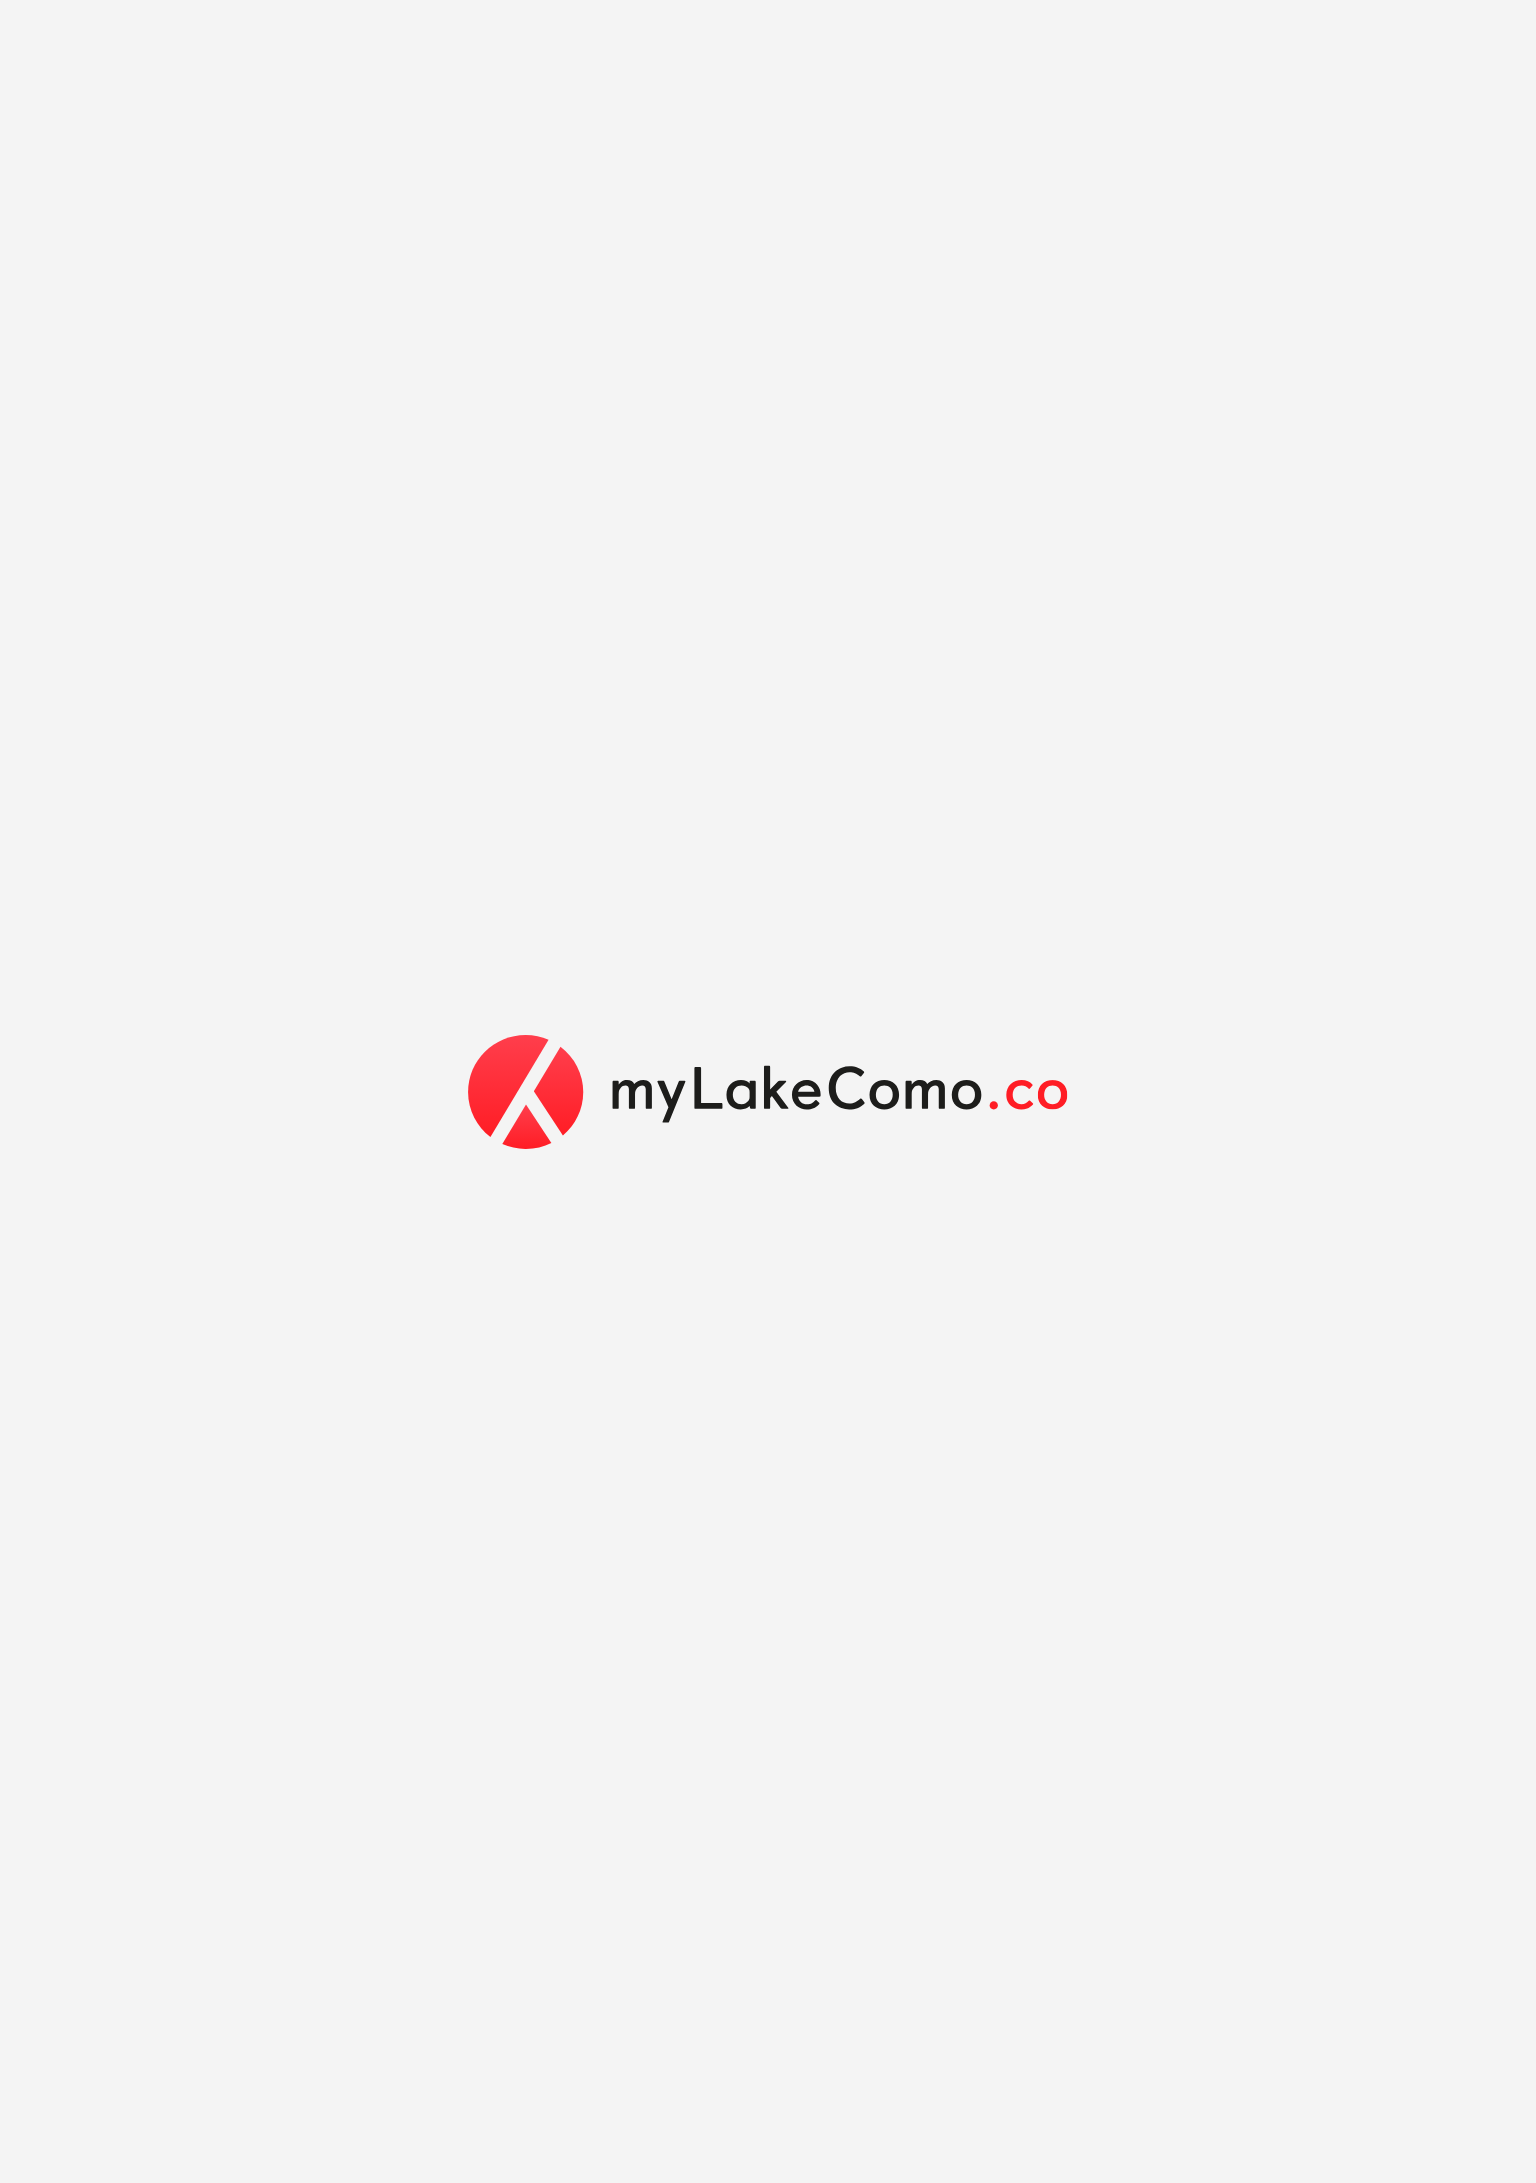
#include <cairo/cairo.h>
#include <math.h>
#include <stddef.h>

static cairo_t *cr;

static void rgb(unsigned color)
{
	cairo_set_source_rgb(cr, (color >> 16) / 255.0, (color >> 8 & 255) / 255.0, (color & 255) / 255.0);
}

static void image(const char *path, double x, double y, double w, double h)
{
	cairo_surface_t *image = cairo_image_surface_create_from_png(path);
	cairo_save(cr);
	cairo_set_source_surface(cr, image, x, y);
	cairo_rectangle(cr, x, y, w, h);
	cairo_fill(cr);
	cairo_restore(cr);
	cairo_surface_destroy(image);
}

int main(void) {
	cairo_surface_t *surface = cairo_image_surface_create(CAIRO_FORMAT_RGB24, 1536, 2183);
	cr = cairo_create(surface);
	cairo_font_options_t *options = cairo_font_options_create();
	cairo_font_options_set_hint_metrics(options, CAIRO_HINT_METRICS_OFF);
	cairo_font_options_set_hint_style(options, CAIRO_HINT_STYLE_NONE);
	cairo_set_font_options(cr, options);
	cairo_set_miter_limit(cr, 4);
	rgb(0xf4f4f4);
	cairo_paint(cr);
	image("img/1.png", 468, 1035, 600, 114);
	cairo_surface_write_to_png(surface, "page.png");
	cairo_font_options_destroy(options);
	cairo_destroy(cr);
	cairo_surface_destroy(surface);
	return 0;
}
